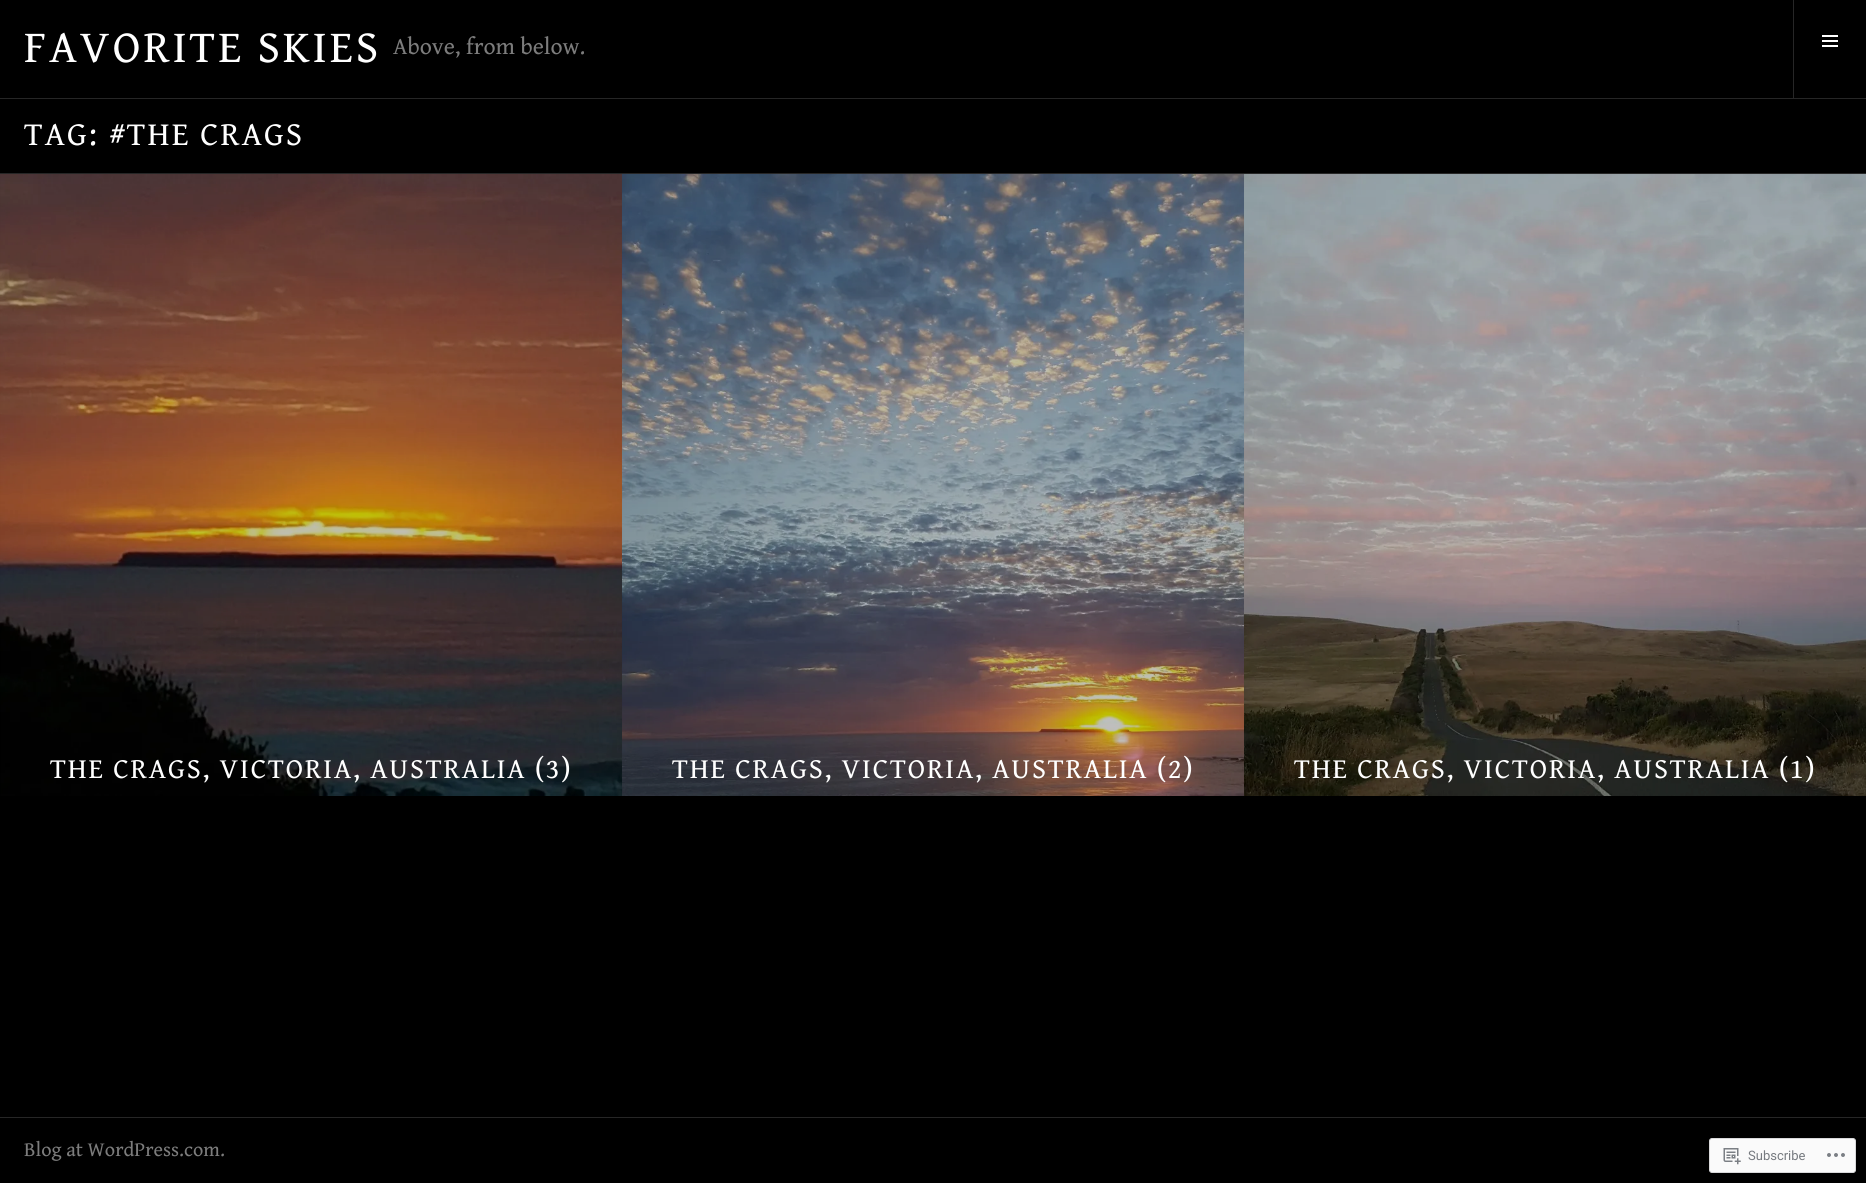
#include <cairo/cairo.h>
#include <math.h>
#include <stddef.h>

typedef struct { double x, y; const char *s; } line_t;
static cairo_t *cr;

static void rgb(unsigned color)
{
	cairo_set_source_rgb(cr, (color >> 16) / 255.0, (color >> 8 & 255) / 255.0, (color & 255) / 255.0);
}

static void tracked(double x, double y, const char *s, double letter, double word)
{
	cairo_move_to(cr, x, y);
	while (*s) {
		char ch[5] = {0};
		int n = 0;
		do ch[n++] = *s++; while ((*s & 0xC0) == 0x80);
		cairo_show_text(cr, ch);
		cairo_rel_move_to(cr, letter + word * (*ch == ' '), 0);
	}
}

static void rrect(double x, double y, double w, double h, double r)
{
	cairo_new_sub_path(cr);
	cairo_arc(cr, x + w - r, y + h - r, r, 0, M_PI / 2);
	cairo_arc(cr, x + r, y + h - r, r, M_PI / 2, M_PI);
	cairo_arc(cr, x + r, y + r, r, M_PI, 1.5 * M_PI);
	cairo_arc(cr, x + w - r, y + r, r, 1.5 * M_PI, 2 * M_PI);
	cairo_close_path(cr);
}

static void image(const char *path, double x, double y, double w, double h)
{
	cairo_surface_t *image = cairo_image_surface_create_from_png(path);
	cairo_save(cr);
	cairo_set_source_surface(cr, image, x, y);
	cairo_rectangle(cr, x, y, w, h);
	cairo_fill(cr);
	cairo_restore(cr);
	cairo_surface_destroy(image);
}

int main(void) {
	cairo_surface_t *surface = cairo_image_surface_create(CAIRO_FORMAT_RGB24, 1866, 1183);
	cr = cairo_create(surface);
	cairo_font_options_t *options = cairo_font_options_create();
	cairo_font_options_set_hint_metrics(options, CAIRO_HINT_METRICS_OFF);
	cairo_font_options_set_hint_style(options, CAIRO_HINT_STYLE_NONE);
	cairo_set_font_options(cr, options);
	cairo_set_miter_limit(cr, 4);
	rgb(0x000000);
	cairo_paint(cr);
	rgb(0x262626);
	cairo_rectangle(cr, 0, 98, 1866, 1);
	cairo_fill(cr);
	cairo_rectangle(cr, 1793, 0, 1, 98);
	cairo_fill(cr);
	image("img/1.png", 1822, 35, 16, 12);
	cairo_rectangle(cr, 0, 173, 1866, 1);
	cairo_fill(cr);
	image("img/2.png", 0, 174, 622, 622);
	image("img/3.png", 622, 174, 622, 622);
	image("img/4.png", 1244, 174, 622, 622);
	cairo_rectangle(cr, 0, 1117, 1866, 1);
	cairo_fill(cr);
	rgb(0xfafafa);
	rrect(1709.5, 1138.5, 146, 34, 2.5);
	cairo_fill_preserve(cr);
	rgb(0xd8d8da);
	cairo_set_line_width(cr, 1);
	cairo_stroke(cr);
	image("img/5.png", 1723, 1148, 18, 17);
	image("img/6.png", 1827, 1153, 18, 4);
	cairo_select_font_face(cr, "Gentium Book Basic", CAIRO_FONT_SLANT_NORMAL, CAIRO_FONT_WEIGHT_NORMAL);
	cairo_set_font_size(cr, 45.75);
	rgb(0xffffff);
	tracked(24, 62, "FAVORITE SKIES", 2.9, 0);
	cairo_set_font_size(cr, 23.75);
	rgb(0x7c7c7c);
	cairo_move_to(cr, 393, 54);
	cairo_show_text(cr, "Above, from below.");
	cairo_set_font_size(cr, 33.25);
	rgb(0xffffff);
	tracked(24, 145, "TAG: #THE CRAGS", 2.1, 0);
	cairo_set_font_size(cr, 28.6);
	{
		static const line_t items[] = {
			{50, 778, "THE CRAGS, VICTORIA, AUSTRALIA (3)"},
			{672, 778, "THE CRAGS, VICTORIA, AUSTRALIA (2)"},
			{1294, 778, "THE CRAGS, VICTORIA, AUSTRALIA (1)"},
		};
		for (size_t i = 0; i < sizeof items / sizeof *items; i++) {
			tracked(items[i].x, items[i].y, items[i].s, 1.8, 0);
		}
	}
	cairo_set_font_size(cr, 20.25);
	rgb(0x7c7c7c);
	cairo_move_to(cr, 24, 1156);
	cairo_show_text(cr, "Blog at WordPress.com.");
	cairo_select_font_face(cr, "Roboto", CAIRO_FONT_SLANT_NORMAL, CAIRO_FONT_WEIGHT_NORMAL);
	cairo_set_font_size(cr, 13);
	rgb(0x767a7f);
	cairo_move_to(cr, 1748, 1160);
	cairo_show_text(cr, "Subscribe");
	cairo_surface_write_to_png(surface, "page.png");
	cairo_font_options_destroy(options);
	cairo_destroy(cr);
	cairo_surface_destroy(surface);
	return 0;
}
